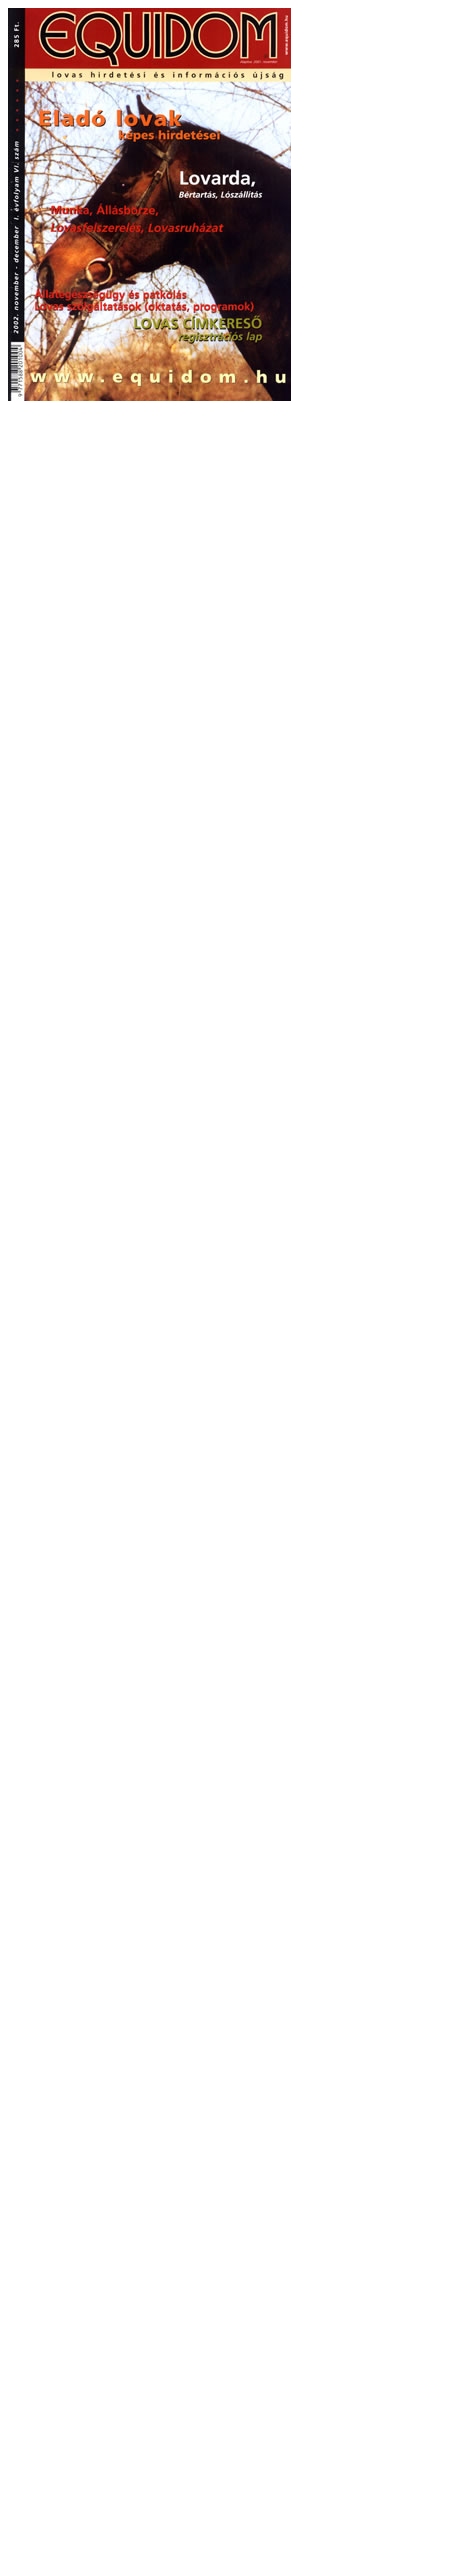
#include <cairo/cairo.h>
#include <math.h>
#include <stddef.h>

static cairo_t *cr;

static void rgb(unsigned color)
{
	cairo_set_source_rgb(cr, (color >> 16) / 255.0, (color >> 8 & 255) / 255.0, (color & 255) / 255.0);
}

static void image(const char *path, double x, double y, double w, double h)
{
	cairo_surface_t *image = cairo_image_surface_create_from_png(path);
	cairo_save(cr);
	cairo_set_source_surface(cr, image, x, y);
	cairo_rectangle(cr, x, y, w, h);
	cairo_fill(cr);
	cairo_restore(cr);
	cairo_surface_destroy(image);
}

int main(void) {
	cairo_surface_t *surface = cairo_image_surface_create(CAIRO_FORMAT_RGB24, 455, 2560);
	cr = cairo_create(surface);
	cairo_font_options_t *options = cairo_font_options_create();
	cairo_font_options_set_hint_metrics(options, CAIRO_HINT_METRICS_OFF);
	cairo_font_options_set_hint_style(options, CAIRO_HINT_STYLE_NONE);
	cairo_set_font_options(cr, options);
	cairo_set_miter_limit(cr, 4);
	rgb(0xffffff);
	cairo_paint(cr);
	image("img/1.png", 8, 8, 283, 393);
	cairo_surface_write_to_png(surface, "page.png");
	cairo_font_options_destroy(options);
	cairo_destroy(cr);
	cairo_surface_destroy(surface);
	return 0;
}
